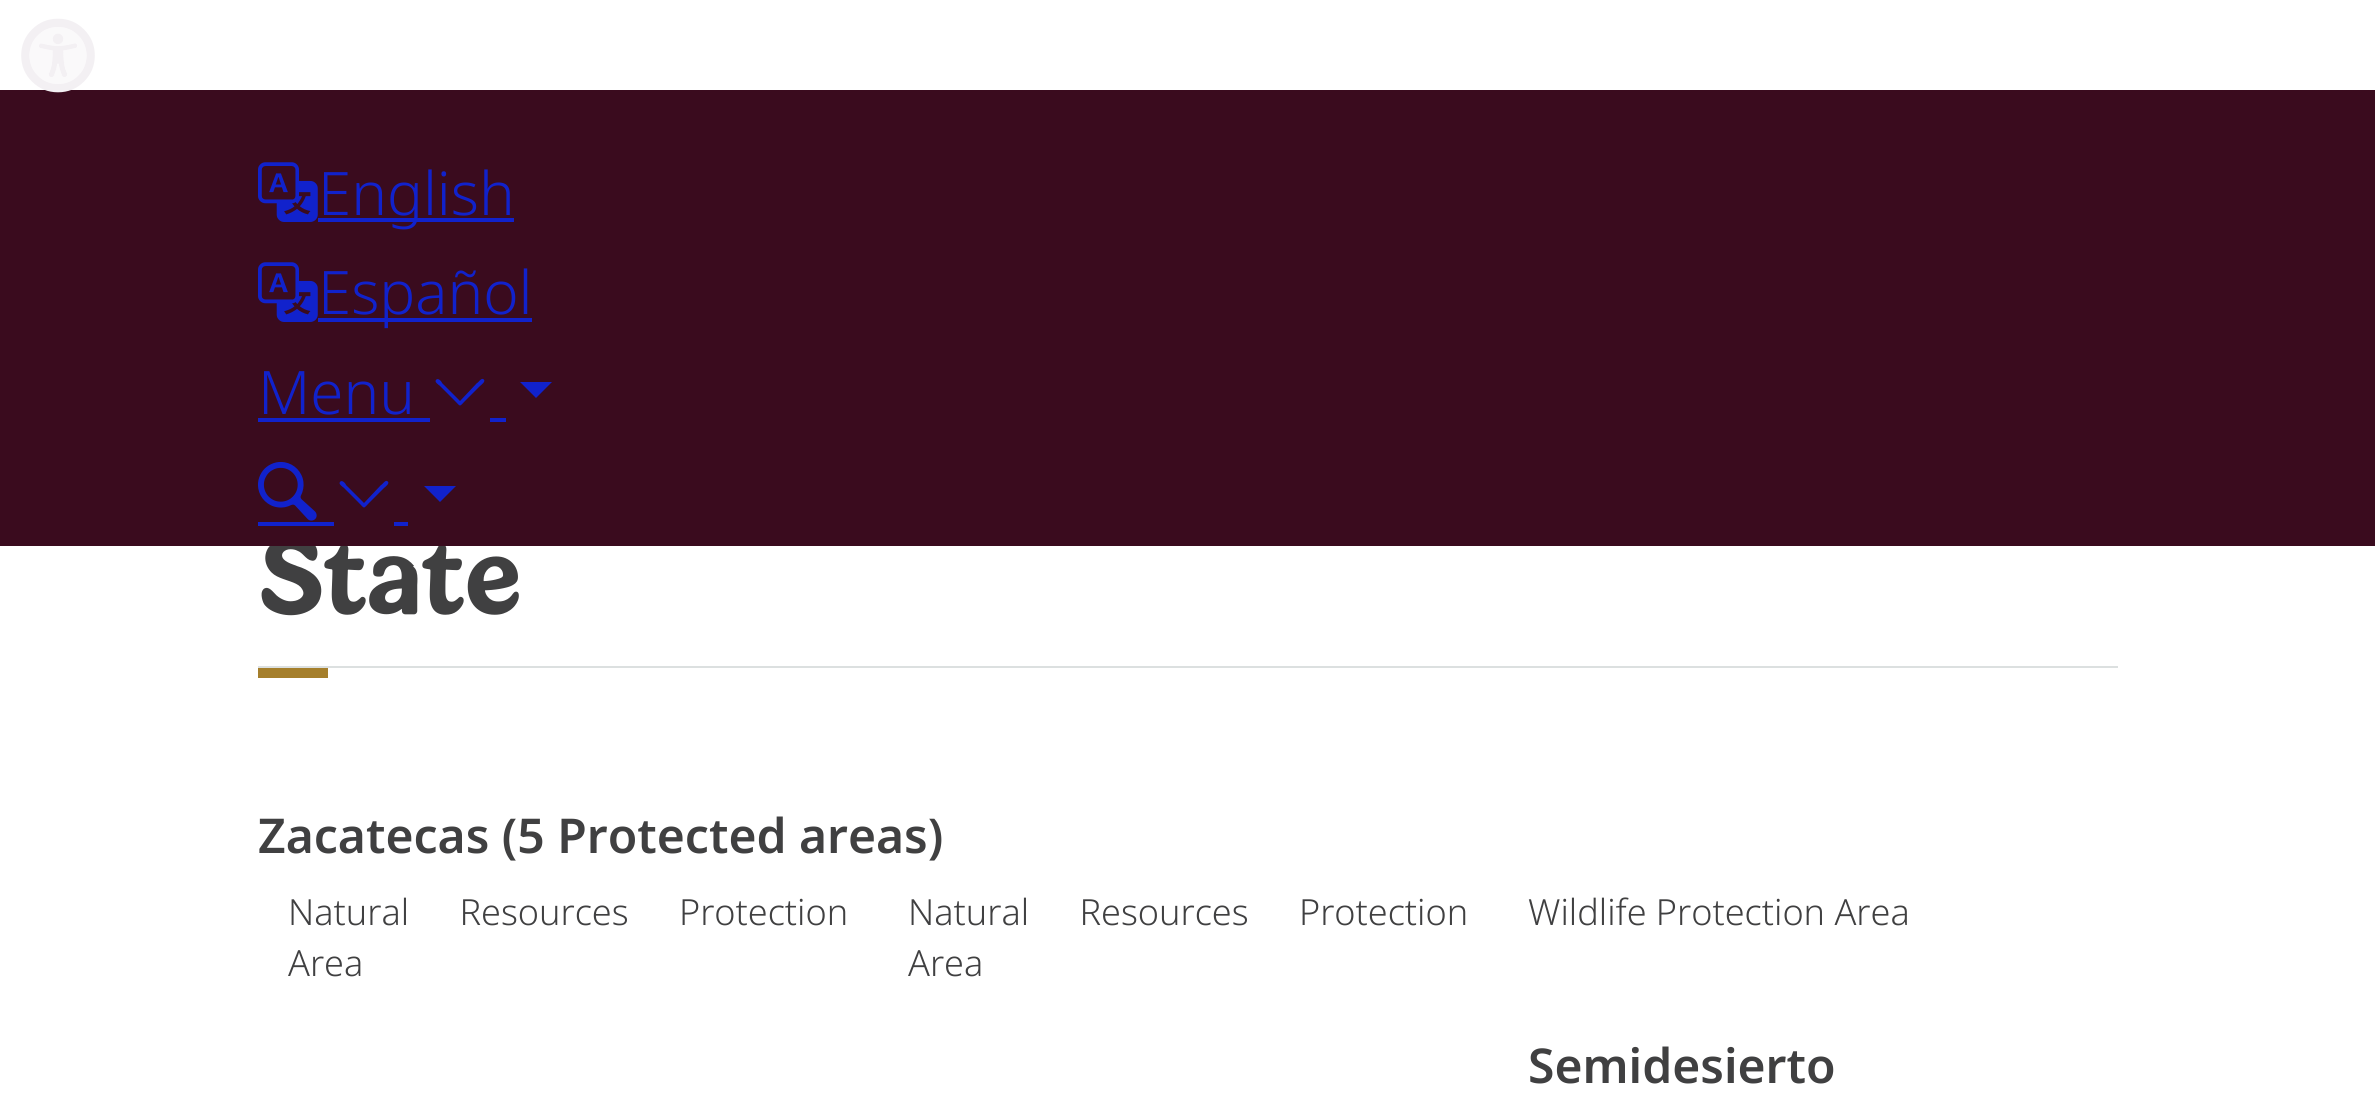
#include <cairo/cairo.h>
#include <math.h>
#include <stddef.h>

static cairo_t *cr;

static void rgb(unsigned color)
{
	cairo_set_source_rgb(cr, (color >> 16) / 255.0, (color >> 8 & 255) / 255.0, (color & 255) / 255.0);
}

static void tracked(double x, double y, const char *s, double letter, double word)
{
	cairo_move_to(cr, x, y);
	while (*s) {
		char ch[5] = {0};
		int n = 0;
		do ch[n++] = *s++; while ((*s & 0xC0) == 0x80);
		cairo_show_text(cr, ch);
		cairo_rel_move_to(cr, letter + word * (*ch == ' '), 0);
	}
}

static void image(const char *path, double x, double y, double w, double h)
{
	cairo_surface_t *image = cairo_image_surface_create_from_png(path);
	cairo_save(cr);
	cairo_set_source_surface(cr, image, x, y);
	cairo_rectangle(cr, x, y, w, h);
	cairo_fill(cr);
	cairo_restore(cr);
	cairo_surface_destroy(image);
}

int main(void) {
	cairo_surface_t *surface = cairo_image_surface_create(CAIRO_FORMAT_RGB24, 2375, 1104);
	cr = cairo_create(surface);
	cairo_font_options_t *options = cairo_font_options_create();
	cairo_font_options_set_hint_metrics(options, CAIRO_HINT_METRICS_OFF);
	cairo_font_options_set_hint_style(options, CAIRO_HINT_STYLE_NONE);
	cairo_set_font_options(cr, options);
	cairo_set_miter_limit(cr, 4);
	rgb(0xffffff);
	cairo_paint(cr);
	rgb(0xdce0e0);
	cairo_rectangle(cr, 258, 666, 1860, 2);
	cairo_fill(cr);
	rgb(0xa57f2c);
	cairo_rectangle(cr, 258, 668, 70, 10);
	cairo_fill(cr);
	cairo_select_font_face(cr, "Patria", CAIRO_FONT_SLANT_NORMAL, CAIRO_FONT_WEIGHT_BOLD);
	cairo_set_font_size(cr, 108);
	rgb(0x404041);
	cairo_move_to(cr, 258, 614);
	cairo_show_text(cr, "State");
	rgb(0x3a0b1e);
	cairo_rectangle(cr, 0, 90, 2375, 456);
	cairo_fill(cr);
	image("img/1.png", 21, 18, 74, 75);
	image("img/2.png", 30, 27, 56, 57);
	rgb(0x1122cc);
	cairo_new_path(cr);
	cairo_move_to(cr, 424, 486);
	cairo_line_to(cr, 456, 486);
	cairo_line_to(cr, 440, 502);
	cairo_close_path(cr);
	cairo_fill(cr);
	cairo_rectangle(cr, 394, 522, 14, 4);
	cairo_fill(cr);
	cairo_new_path(cr);
	cairo_move_to(cr, 340, 482);
	cairo_curve_to(cr, 342, 479, 346, 484, 346, 485);
	cairo_line_to(cr, 364, 503);
	cairo_line_to(cr, 381, 485);
	cairo_curve_to(cr, 382, 485, 385, 480, 387, 481);
	cairo_curve_to(cr, 391, 483, 385, 487, 384, 488);
	cairo_line_to(cr, 369, 503);
	cairo_curve_to(cr, 363, 509, 365, 509, 359, 503);
	cairo_line_to(cr, 344, 488);
	cairo_curve_to(cr, 343, 487, 338, 484, 340, 482);
	cairo_close_path(cr);
	cairo_fill(cr);
	image("img/4.png", 258, 462, 59, 59);
	cairo_rectangle(cr, 258, 522, 76, 4);
	cairo_fill(cr);
	cairo_new_path(cr);
	cairo_move_to(cr, 520, 382);
	cairo_line_to(cr, 552, 382);
	cairo_line_to(cr, 536, 398);
	cairo_close_path(cr);
	cairo_fill(cr);
	cairo_rectangle(cr, 490, 418, 16, 4);
	cairo_fill(cr);
	cairo_new_path(cr);
	cairo_move_to(cr, 436, 380);
	cairo_curve_to(cr, 438, 377, 442, 382, 442, 383);
	cairo_line_to(cr, 460, 401);
	cairo_line_to(cr, 477, 383);
	cairo_curve_to(cr, 478, 383, 481, 378, 483, 379);
	cairo_curve_to(cr, 487, 381, 481, 385, 480, 386);
	cairo_line_to(cr, 465, 401);
	cairo_curve_to(cr, 459, 407, 461, 407, 455, 401);
	cairo_line_to(cr, 440, 386);
	cairo_curve_to(cr, 439, 385, 434, 382, 436, 380);
	cairo_close_path(cr);
	cairo_fill(cr);
	cairo_select_font_face(cr, "Noto Sans Light", CAIRO_FONT_SLANT_NORMAL, CAIRO_FONT_WEIGHT_NORMAL);
	cairo_set_font_size(cr, 60);
	cairo_move_to(cr, 258, 414);
	cairo_show_text(cr, "Menu");
	cairo_rectangle(cr, 258, 418, 172, 4);
	cairo_fill(cr);
	cairo_rectangle(cr, 318, 318, 214, 4);
	cairo_fill(cr);
	cairo_move_to(cr, 318, 314);
	cairo_show_text(cr, "Español");
	image("img/3.png", 258, 262, 60, 60);
	cairo_rectangle(cr, 318, 218, 196, 4);
	cairo_fill(cr);
	cairo_move_to(cr, 318, 215);
	cairo_show_text(cr, "English");
	image("img/3.png", 258, 162, 60, 60);
	cairo_select_font_face(cr, "Noto Sans SemiBold", CAIRO_FONT_SLANT_NORMAL, CAIRO_FONT_WEIGHT_NORMAL);
	cairo_set_font_size(cr, 48);
	rgb(0x404041);
	cairo_move_to(cr, 258, 853);
	cairo_show_text(cr, "Zacatecas (5 Protected areas)");
	cairo_select_font_face(cr, "Noto Sans Light", CAIRO_FONT_SLANT_NORMAL, CAIRO_FONT_WEIGHT_NORMAL);
	cairo_set_font_size(cr, 36);
	tracked(288, 925, "Natural Resources Protection", 0, 41);
	cairo_move_to(cr, 288, 976);
	cairo_show_text(cr, "Area");
	tracked(908, 925, "Natural Resources Protection", 0, 41);
	cairo_move_to(cr, 908, 976);
	cairo_show_text(cr, "Area");
	cairo_move_to(cr, 1528, 925);
	cairo_show_text(cr, "Wildlife Protection Area");
	cairo_select_font_face(cr, "Noto Sans SemiBold", CAIRO_FONT_SLANT_NORMAL, CAIRO_FONT_WEIGHT_NORMAL);
	cairo_set_font_size(cr, 48);
	cairo_move_to(cr, 1528, 1083);
	cairo_show_text(cr, "Semidesierto");
	cairo_surface_write_to_png(surface, "page.png");
	cairo_font_options_destroy(options);
	cairo_destroy(cr);
	cairo_surface_destroy(surface);
	return 0;
}
